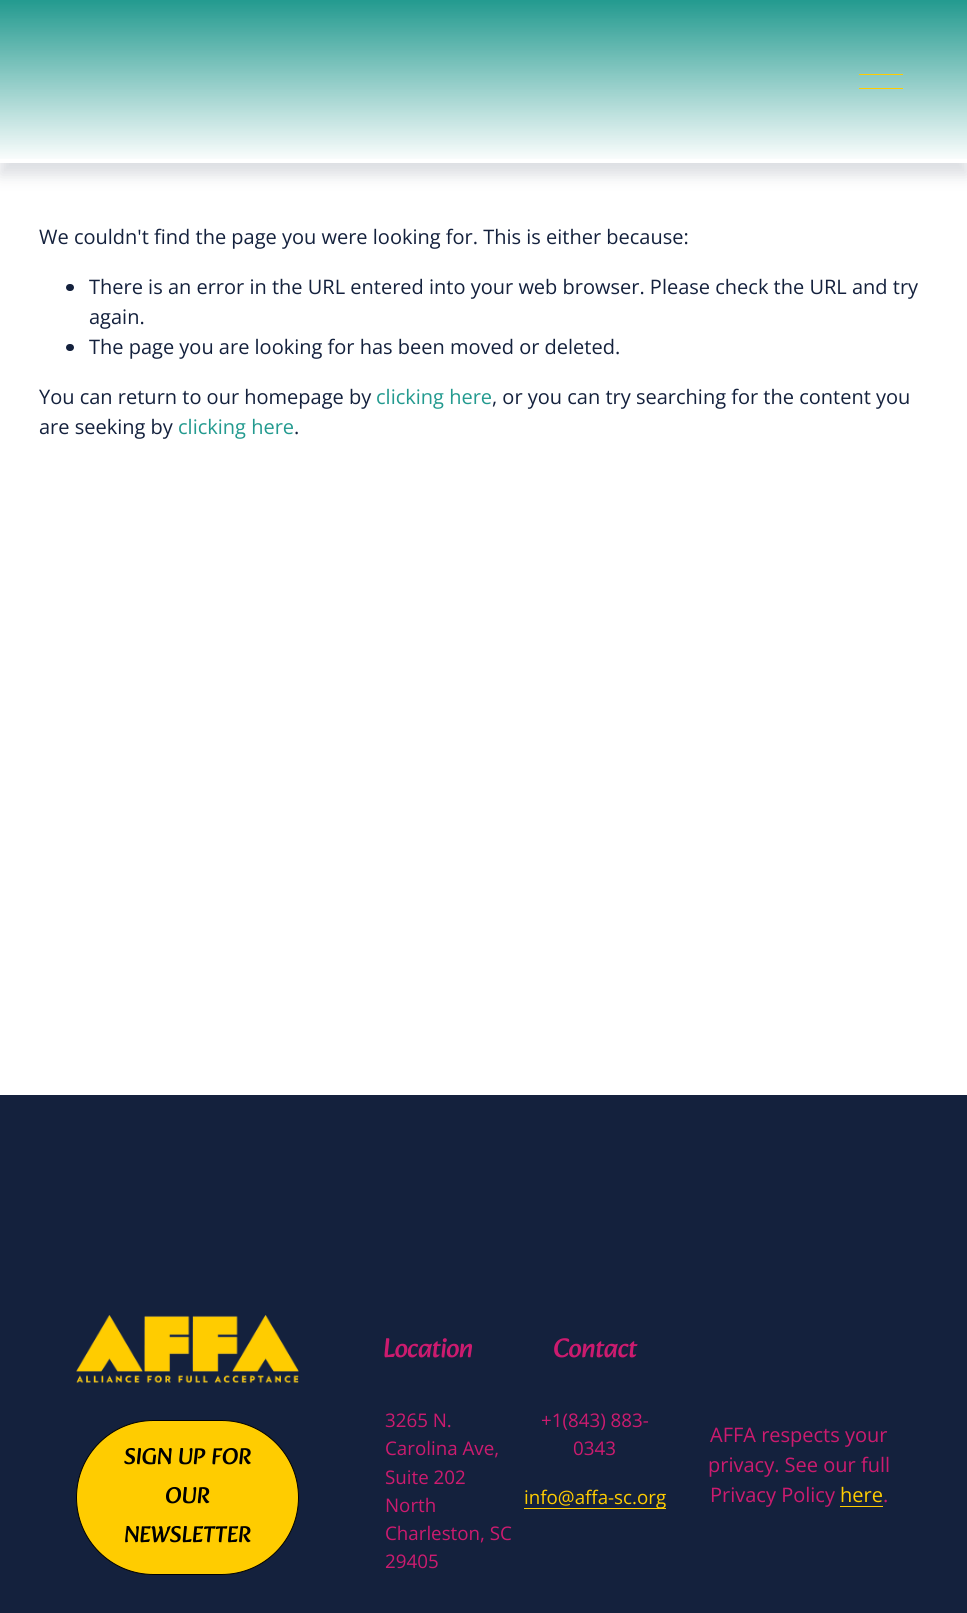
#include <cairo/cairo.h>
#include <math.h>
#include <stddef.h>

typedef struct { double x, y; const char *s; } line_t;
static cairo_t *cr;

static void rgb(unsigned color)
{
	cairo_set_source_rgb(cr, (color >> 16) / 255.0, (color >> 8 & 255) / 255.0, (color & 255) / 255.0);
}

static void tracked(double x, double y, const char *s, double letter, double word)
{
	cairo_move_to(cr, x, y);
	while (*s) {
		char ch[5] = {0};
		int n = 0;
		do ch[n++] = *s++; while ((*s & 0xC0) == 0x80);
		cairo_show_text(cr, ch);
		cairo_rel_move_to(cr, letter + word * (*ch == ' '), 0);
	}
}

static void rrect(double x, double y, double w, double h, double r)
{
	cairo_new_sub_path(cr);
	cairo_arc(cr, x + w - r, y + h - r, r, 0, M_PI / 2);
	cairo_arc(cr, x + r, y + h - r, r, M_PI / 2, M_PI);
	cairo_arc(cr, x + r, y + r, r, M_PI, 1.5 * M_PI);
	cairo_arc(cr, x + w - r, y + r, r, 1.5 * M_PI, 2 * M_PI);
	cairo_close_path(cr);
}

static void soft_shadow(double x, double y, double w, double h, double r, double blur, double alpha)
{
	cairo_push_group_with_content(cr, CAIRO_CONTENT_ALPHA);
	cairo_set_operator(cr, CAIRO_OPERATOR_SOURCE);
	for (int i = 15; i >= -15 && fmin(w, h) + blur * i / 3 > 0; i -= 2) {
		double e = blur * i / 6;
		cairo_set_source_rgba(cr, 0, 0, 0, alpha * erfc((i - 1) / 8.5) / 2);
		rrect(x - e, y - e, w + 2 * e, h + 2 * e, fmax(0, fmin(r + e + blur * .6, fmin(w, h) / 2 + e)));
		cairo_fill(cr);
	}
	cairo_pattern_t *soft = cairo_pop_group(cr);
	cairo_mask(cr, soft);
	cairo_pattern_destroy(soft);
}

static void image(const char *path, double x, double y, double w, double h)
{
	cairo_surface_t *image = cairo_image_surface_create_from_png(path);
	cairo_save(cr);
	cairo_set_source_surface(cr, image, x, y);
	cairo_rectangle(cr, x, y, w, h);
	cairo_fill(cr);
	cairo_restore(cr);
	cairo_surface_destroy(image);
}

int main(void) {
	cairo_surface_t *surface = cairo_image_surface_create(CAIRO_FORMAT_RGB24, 967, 1613);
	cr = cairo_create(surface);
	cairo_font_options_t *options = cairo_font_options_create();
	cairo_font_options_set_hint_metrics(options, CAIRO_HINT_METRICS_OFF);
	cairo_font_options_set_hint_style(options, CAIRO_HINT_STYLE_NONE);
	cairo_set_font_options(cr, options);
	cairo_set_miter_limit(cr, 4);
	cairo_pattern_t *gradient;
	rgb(0xffffff);
	cairo_paint(cr);
	cairo_save(cr);
	cairo_set_fill_rule(cr, CAIRO_FILL_RULE_EVEN_ODD);
	cairo_new_path(cr);
	cairo_move_to(cr, 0, 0);
	cairo_line_to(cr, 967, 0);
	cairo_line_to(cr, 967, 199);
	cairo_line_to(cr, 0, 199);
	cairo_close_path(cr);
	cairo_move_to(cr, 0, 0);
	cairo_line_to(cr, 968, 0);
	cairo_line_to(cr, 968, 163);
	cairo_line_to(cr, 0, 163);
	cairo_close_path(cr);
	cairo_clip(cr);
	rgb(0xdcdee2);
	soft_shadow(0, 13, 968, 162, 0, 7.5, 1);
	cairo_restore(cr);
	gradient = cairo_pattern_create_linear(484, 0, 484, 163);
	cairo_pattern_add_color_stop_rgba(gradient, 0, 0.137, 0.604, 0.561, 1);
	cairo_pattern_add_color_stop_rgba(gradient, 1, 0.137, 0.604, 0.561, 0);
	cairo_set_source(cr, gradient);
	cairo_pattern_destroy(gradient);
	cairo_rectangle(cr, 0, 0, 967, 159);
	cairo_fill(cr);
	rgb(0xffcc00);
	cairo_rectangle(cr, 859, 74, 44, 1);
	cairo_fill(cr);
	cairo_rectangle(cr, 859, 88, 44, 1);
	cairo_fill(cr);
	rgb(0x14213d);
	rrect(66, 284, 8, 7, 3.5);
	cairo_fill(cr);
	rrect(66, 344, 8, 7, 3.5);
	cairo_fill(cr);
	cairo_rectangle(cr, 0, 1095, 967, 518);
	cairo_fill(cr);
	image("img/1.png", 76, 1315, 223, 68);
	rgb(0xffcc00);
	cairo_rectangle(cr, 524, 1508, 142, 1);
	cairo_fill(cr);
	cairo_rectangle(cr, 840, 1506, 43, 1);
	cairo_fill(cr);
	rrect(76.5, 1420.5, 222, 154, 77);
	cairo_fill_preserve(cr);
	rgb(0x000000);
	cairo_set_line_width(cr, 1);
	cairo_stroke(cr);
	cairo_select_font_face(cr, "Open Sans", CAIRO_FONT_SLANT_NORMAL, CAIRO_FONT_WEIGHT_NORMAL);
	cairo_set_font_size(cr, 20);
	rgb(0x14213d);
	{
		static const line_t items[] = {
			{39, 244, "We couldn't find the page you were looking for. This is either because:"},
			{89, 294, "There is an error in the URL entered into your web browser. Please check the URL and try"},
			{89, 324, "again."},
			{89, 354, "The page you are looking for has been moved or deleted."},
			{39, 404, "You can return to our homepage by"},
		};
		for (size_t i = 0; i < sizeof items / sizeof *items; i++) {
			cairo_move_to(cr, items[i].x, items[i].y);
			cairo_show_text(cr, items[i].s);
		}
	}
	rgb(0x239a8f);
	cairo_move_to(cr, 376, 404);
	cairo_show_text(cr, "clicking here");
	rgb(0x14213d);
	cairo_move_to(cr, 492, 404);
	cairo_show_text(cr, ", or you can try searching for the content you");
	cairo_move_to(cr, 39, 434);
	cairo_show_text(cr, "are seeking by");
	rgb(0x239a8f);
	cairo_move_to(cr, 178, 434);
	cairo_show_text(cr, "clicking here");
	rgb(0x14213d);
	cairo_move_to(cr, 294, 434);
	cairo_show_text(cr, ".");
	cairo_select_font_face(cr, "Alkatra", CAIRO_FONT_SLANT_NORMAL, CAIRO_FONT_WEIGHT_NORMAL);
	cairo_set_font_size(cr, 27);
	rgb(0xcc1b6f);
	tracked(383, 1357, "Location", -0.5, 0);
	cairo_select_font_face(cr, "Open Sans", CAIRO_FONT_SLANT_NORMAL, CAIRO_FONT_WEIGHT_NORMAL);
	cairo_set_font_size(cr, 18.75);
	{
		static const line_t items[] = {
			{385, 1427, "3265 N."},
			{385, 1455, "Carolina Ave,"},
			{385, 1484, "Suite 202"},
			{385, 1512, "North"},
			{385, 1540, "Charleston, SC"},
			{385, 1568, "29405"},
		};
		for (size_t i = 0; i < sizeof items / sizeof *items; i++) {
			cairo_move_to(cr, items[i].x, items[i].y);
			cairo_show_text(cr, items[i].s);
		}
	}
	cairo_select_font_face(cr, "Alkatra", CAIRO_FONT_SLANT_NORMAL, CAIRO_FONT_WEIGHT_NORMAL);
	cairo_set_font_size(cr, 27);
	tracked(553, 1357, "Contact", -0.5, 0);
	cairo_select_font_face(cr, "Open Sans", CAIRO_FONT_SLANT_NORMAL, CAIRO_FONT_WEIGHT_NORMAL);
	cairo_set_font_size(cr, 18.75);
	cairo_move_to(cr, 541, 1427);
	cairo_show_text(cr, "+1(843) 883-");
	cairo_move_to(cr, 573, 1455);
	cairo_show_text(cr, "0343");
	rgb(0xffcc00);
	cairo_move_to(cr, 524, 1504);
	cairo_show_text(cr, "info@affa-sc.org");
	cairo_set_font_size(cr, 20);
	rgb(0xcc1b6f);
	{
		static const line_t items[] = {
			{710, 1442, "AFFA respects your"},
			{708, 1472, "privacy. See our full"},
			{710, 1502, "Privacy Policy"},
		};
		for (size_t i = 0; i < sizeof items / sizeof *items; i++) {
			cairo_move_to(cr, items[i].x, items[i].y);
			cairo_show_text(cr, items[i].s);
		}
	}
	rgb(0xffcc00);
	cairo_move_to(cr, 840, 1502);
	cairo_show_text(cr, "here");
	rgb(0xcc1b6f);
	cairo_move_to(cr, 883, 1502);
	cairo_show_text(cr, ".");
	cairo_select_font_face(cr, "Alkatra", CAIRO_FONT_SLANT_NORMAL, CAIRO_FONT_WEIGHT_NORMAL);
	cairo_set_font_size(cr, 23);
	rgb(0x000000);
	{
		static const line_t items[] = {
			{124, 1464, "SIGN UP FOR"},
			{165, 1503, "OUR"},
			{124, 1542, "NEWSLETTER"},
		};
		for (size_t i = 0; i < sizeof items / sizeof *items; i++) {
			cairo_move_to(cr, items[i].x, items[i].y);
			cairo_show_text(cr, items[i].s);
		}
	}
	cairo_surface_write_to_png(surface, "page.png");
	cairo_font_options_destroy(options);
	cairo_destroy(cr);
	cairo_surface_destroy(surface);
	return 0;
}
